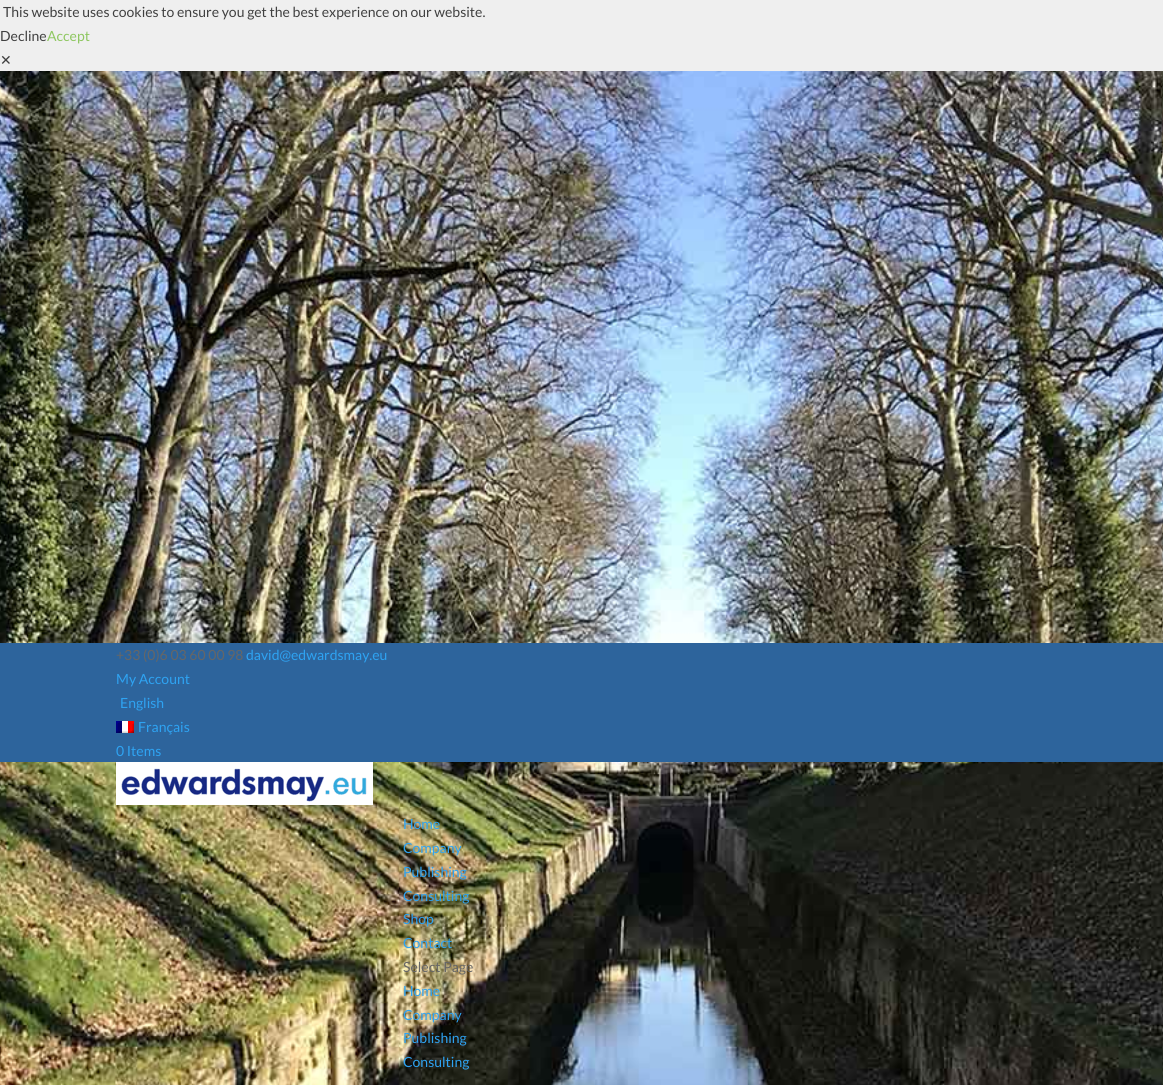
#include <cairo/cairo.h>
#include <math.h>
#include <stddef.h>

typedef struct { double x, y; const char *s; } line_t;
static cairo_t *cr;

static void rgb(unsigned color)
{
	cairo_set_source_rgb(cr, (color >> 16) / 255.0, (color >> 8 & 255) / 255.0, (color & 255) / 255.0);
}

static void image(const char *path, double x, double y, double w, double h)
{
	cairo_surface_t *image = cairo_image_surface_create_from_png(path);
	cairo_save(cr);
	cairo_set_source_surface(cr, image, x, y);
	cairo_rectangle(cr, x, y, w, h);
	cairo_fill(cr);
	cairo_restore(cr);
	cairo_surface_destroy(image);
}

int main(void) {
	cairo_surface_t *surface = cairo_image_surface_create(CAIRO_FORMAT_RGB24, 1163, 1085);
	cr = cairo_create(surface);
	cairo_font_options_t *options = cairo_font_options_create();
	cairo_font_options_set_hint_metrics(options, CAIRO_HINT_METRICS_OFF);
	cairo_font_options_set_hint_style(options, CAIRO_HINT_STYLE_NONE);
	cairo_set_font_options(cr, options);
	cairo_set_miter_limit(cr, 4);
	rgb(0xffffff);
	cairo_paint(cr);
	image("img/1.png", 0, 71, 1163, 1014);
	rgb(0xefefef);
	cairo_rectangle(cr, 0, 0, 1163, 71);
	cairo_fill(cr);
	rgb(0x2d649c);
	cairo_rectangle(cr, 0, 643, 1163, 119);
	cairo_fill(cr);
	image("img/2.png", 116, 721, 18, 12);
	image("img/3.png", 116, 762, 257, 43);
	cairo_select_font_face(cr, "Lato", CAIRO_FONT_SLANT_NORMAL, CAIRO_FONT_WEIGHT_NORMAL);
	cairo_set_font_size(cr, 14);
	rgb(0x404040);
	cairo_move_to(cr, 3, 17);
	cairo_show_text(cr, "This website uses cookies to ensure you get the best experience on our website.");
	cairo_move_to(cr, 0, 41);
	cairo_show_text(cr, "Decline");
	rgb(0x8ec760);
	cairo_move_to(cr, 47, 41);
	cairo_show_text(cr, "Accept");
	cairo_select_font_face(cr, "DejaVu Sans", CAIRO_FONT_SLANT_NORMAL, CAIRO_FONT_WEIGHT_NORMAL);
	rgb(0x404040);
	cairo_move_to(cr, 0, 65);
	cairo_show_text(cr, "✕");
	cairo_select_font_face(cr, "Lato", CAIRO_FONT_SLANT_NORMAL, CAIRO_FONT_WEIGHT_NORMAL);
	rgb(0x666666);
	cairo_move_to(cr, 116, 660);
	cairo_show_text(cr, "+33 (0)6 03 60 00 98");
	rgb(0x2ea3f2);
	{
		static const line_t items[] = {
			{246, 660, "david@edwardsmay.eu"},
			{116, 684, "My Account"},
			{120, 708, "English"},
			{138, 732, "Français"},
			{116, 756, "0 Items"},
			{403, 829, "Home"},
			{403, 853, "Company"},
			{403, 877, "Publishing"},
			{403, 901, "Consulting"},
			{403, 924, "Shop"},
			{403, 948, "Contact"},
		};
		for (size_t i = 0; i < sizeof items / sizeof *items; i++) {
			cairo_move_to(cr, items[i].x, items[i].y);
			cairo_show_text(cr, items[i].s);
		}
	}
	rgb(0x666666);
	cairo_move_to(cr, 403, 972);
	cairo_show_text(cr, "Select Page");
	rgb(0x2ea3f2);
	{
		static const line_t items[] = {
			{403, 996, "Home"},
			{403, 1020, "Company"},
			{403, 1043, "Publishing"},
			{403, 1067, "Consulting"},
		};
		for (size_t i = 0; i < sizeof items / sizeof *items; i++) {
			cairo_move_to(cr, items[i].x, items[i].y);
			cairo_show_text(cr, items[i].s);
		}
	}
	cairo_surface_write_to_png(surface, "page.png");
	cairo_font_options_destroy(options);
	cairo_destroy(cr);
	cairo_surface_destroy(surface);
	return 0;
}
